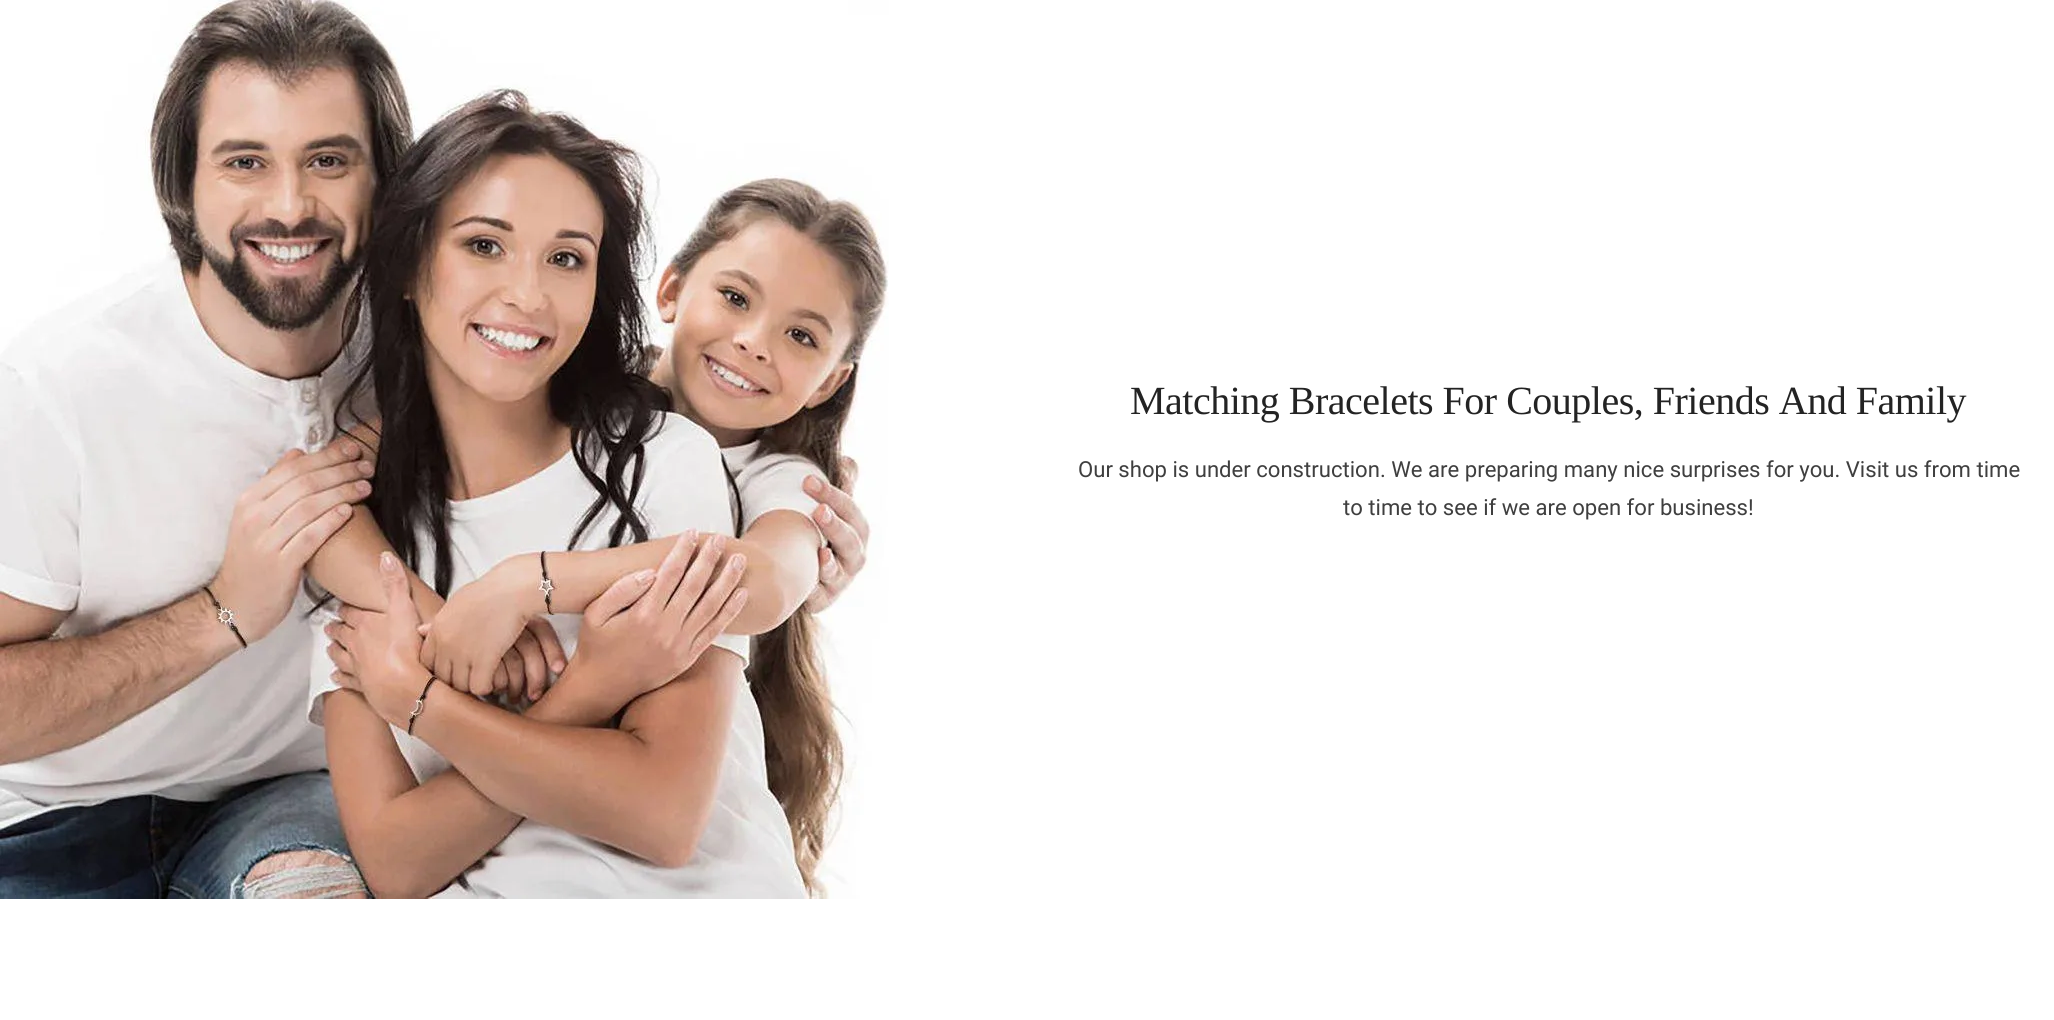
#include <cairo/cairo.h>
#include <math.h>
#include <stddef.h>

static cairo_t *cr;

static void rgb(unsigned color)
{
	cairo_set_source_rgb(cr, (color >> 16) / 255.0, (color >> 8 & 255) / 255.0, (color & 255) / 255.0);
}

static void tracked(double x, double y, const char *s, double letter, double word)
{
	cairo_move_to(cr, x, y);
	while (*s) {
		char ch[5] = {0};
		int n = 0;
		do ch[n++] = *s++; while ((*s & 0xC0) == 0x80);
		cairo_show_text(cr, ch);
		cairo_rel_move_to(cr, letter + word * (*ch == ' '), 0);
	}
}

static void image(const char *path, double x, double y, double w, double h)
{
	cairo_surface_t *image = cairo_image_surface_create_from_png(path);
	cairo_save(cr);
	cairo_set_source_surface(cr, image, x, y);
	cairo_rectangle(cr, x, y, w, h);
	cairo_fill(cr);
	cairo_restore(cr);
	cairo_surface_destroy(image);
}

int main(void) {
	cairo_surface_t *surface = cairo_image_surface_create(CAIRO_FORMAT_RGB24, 2054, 1020);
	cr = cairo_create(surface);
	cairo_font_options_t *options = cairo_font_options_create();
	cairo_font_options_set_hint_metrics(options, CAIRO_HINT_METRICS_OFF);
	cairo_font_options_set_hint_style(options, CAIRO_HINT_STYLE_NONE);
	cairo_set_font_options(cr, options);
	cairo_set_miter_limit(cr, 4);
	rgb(0xffffff);
	cairo_paint(cr);
	image("img/1.png", 0, 0, 889, 899);
	cairo_select_font_face(cr, "Liberation Serif", CAIRO_FONT_SLANT_NORMAL, CAIRO_FONT_WEIGHT_NORMAL);
	cairo_set_font_size(cr, 40);
	rgb(0x232323);
	tracked(1130, 414, "Matching Bracelets For Couples, Friends And Family", -0.5, 0);
	cairo_select_font_face(cr, "Roboto", CAIRO_FONT_SLANT_NORMAL, CAIRO_FONT_WEIGHT_NORMAL);
	cairo_set_font_size(cr, 22.1);
	rgb(0x3f3f3f);
	cairo_move_to(cr, 1078, 477);
	cairo_show_text(cr, "Our shop is under construction. We are preparing many nice surprises for you. Visit us from time");
	cairo_move_to(cr, 1343, 515);
	cairo_show_text(cr, "to time to see if we are open for business!");
	cairo_surface_write_to_png(surface, "page.png");
	cairo_font_options_destroy(options);
	cairo_destroy(cr);
	cairo_surface_destroy(surface);
	return 0;
}
